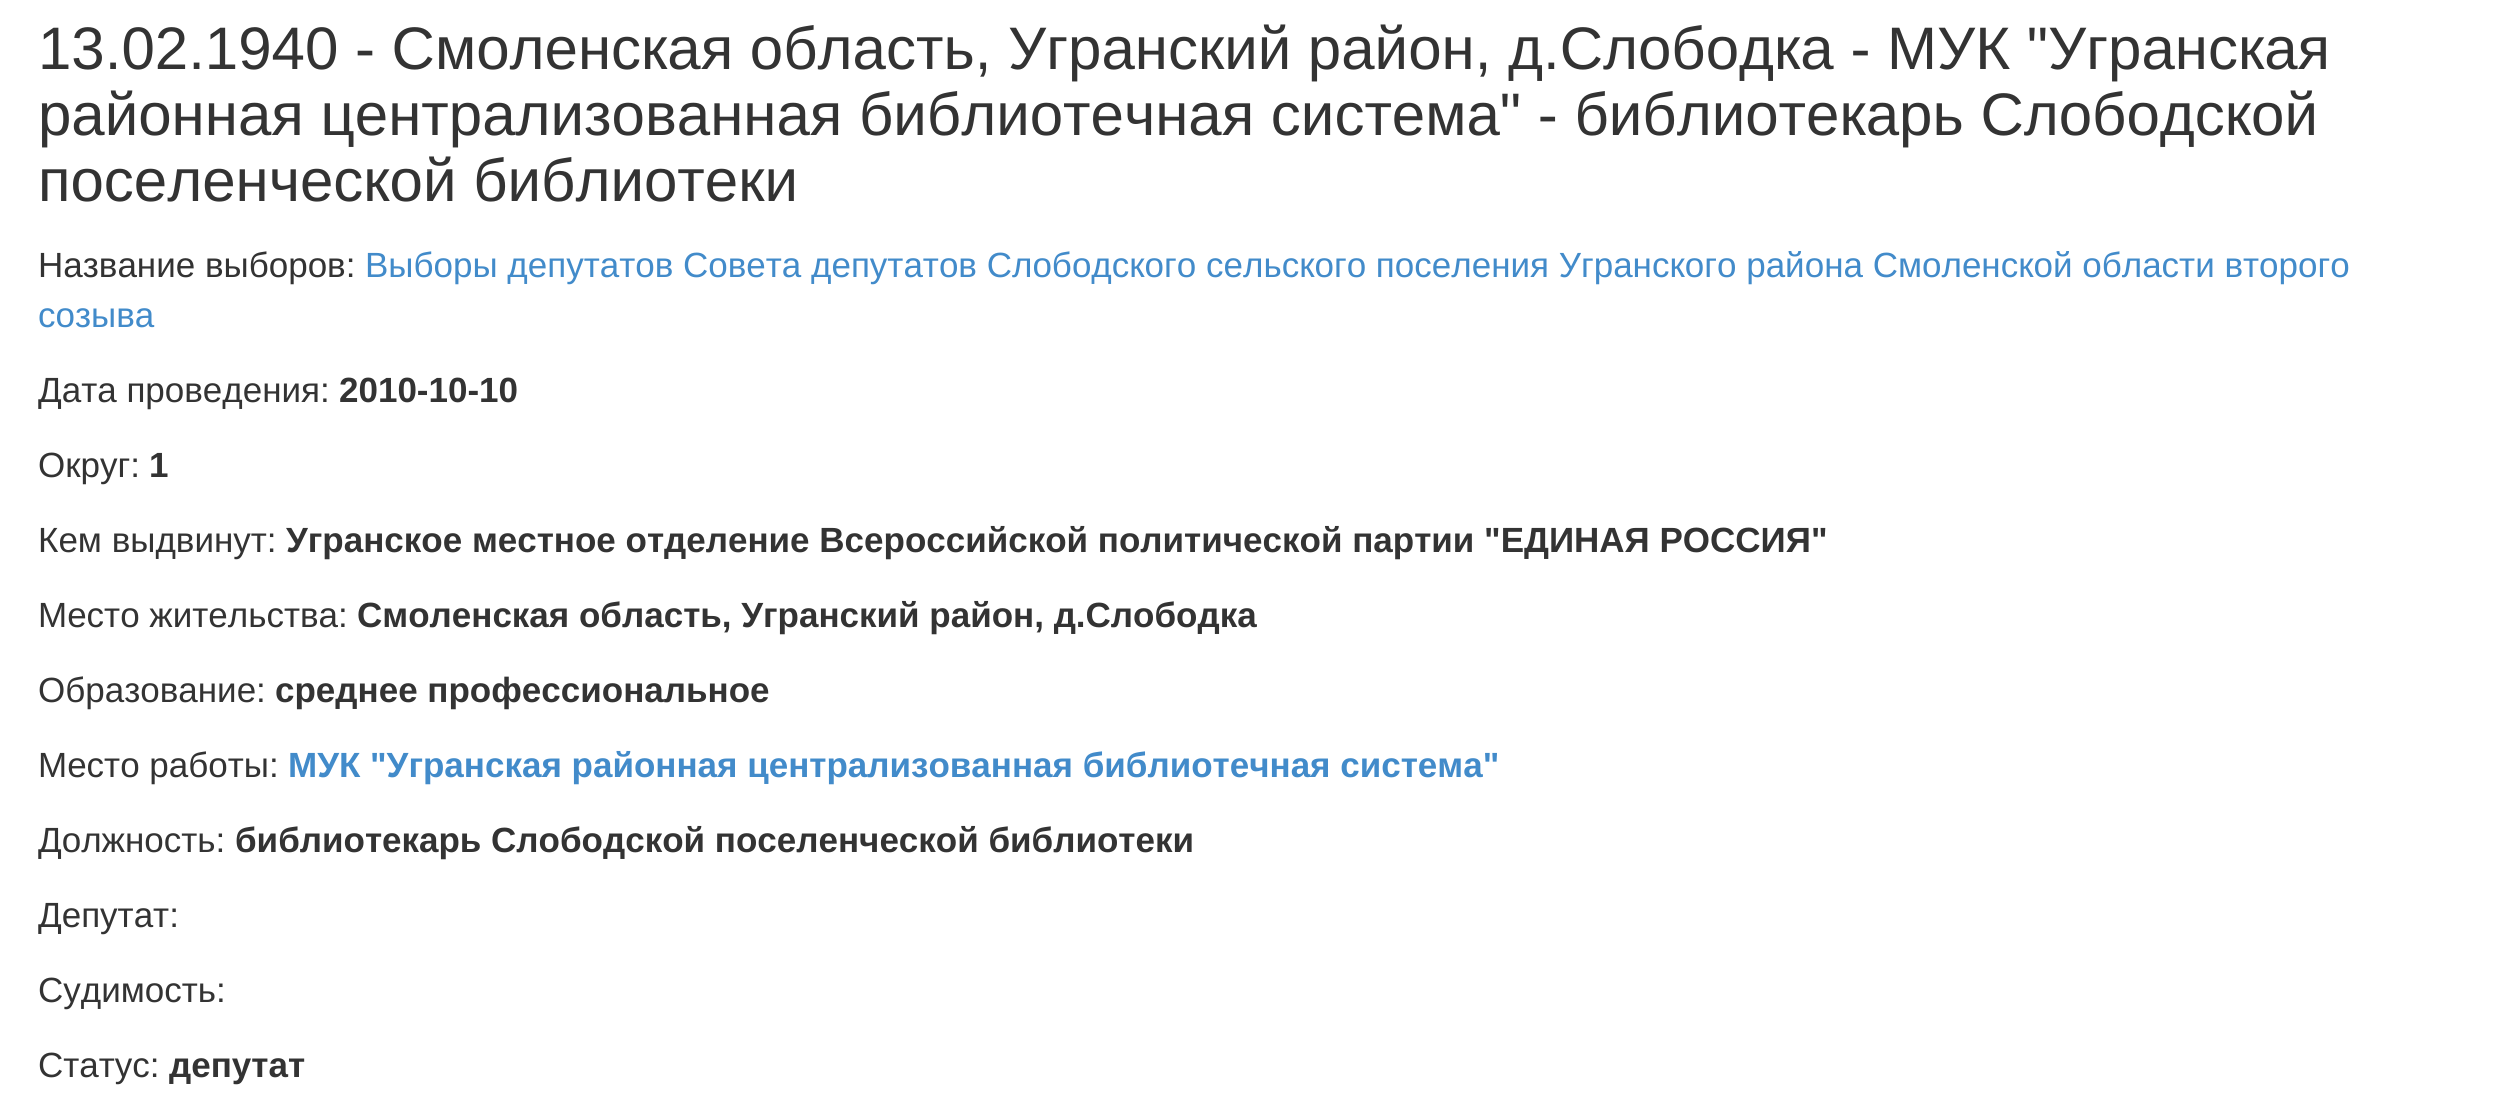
#include <cairo/cairo.h>
#include <math.h>
#include <stddef.h>

typedef struct { double x, y; const char *s; } line_t;
static cairo_t *cr;

static void rgb(unsigned color)
{
	cairo_set_source_rgb(cr, (color >> 16) / 255.0, (color >> 8 & 255) / 255.0, (color & 255) / 255.0);
}

int main(void) {
	cairo_surface_t *surface = cairo_image_surface_create(CAIRO_FORMAT_RGB24, 2498, 1119);
	cr = cairo_create(surface);
	cairo_font_options_t *options = cairo_font_options_create();
	cairo_font_options_set_hint_metrics(options, CAIRO_HINT_METRICS_OFF);
	cairo_font_options_set_hint_style(options, CAIRO_HINT_STYLE_NONE);
	cairo_set_font_options(cr, options);
	cairo_set_miter_limit(cr, 4);
	rgb(0xffffff);
	cairo_paint(cr);
	cairo_select_font_face(cr, "Liberation Sans", CAIRO_FONT_SLANT_NORMAL, CAIRO_FONT_WEIGHT_NORMAL);
	cairo_set_font_size(cr, 60);
	rgb(0x333333);
	{
		static const line_t items[] = {
			{38, 69, "13.02.1940 - Смоленская область, Угранский район, д.Слободка - МУК \"Угранская"},
			{38, 135, "районная централизованная библиотечная система\" - библиотекарь Слободской"},
			{38, 201, "поселенческой библиотеки"},
		};
		for (size_t i = 0; i < sizeof items / sizeof *items; i++) {
			cairo_move_to(cr, items[i].x, items[i].y);
			cairo_show_text(cr, items[i].s);
		}
	}
	cairo_set_font_size(cr, 35);
	cairo_move_to(cr, 38, 277);
	cairo_show_text(cr, "Название выборов:");
	rgb(0x428bca);
	cairo_move_to(cr, 365, 277);
	cairo_show_text(cr, "Выборы депутатов Совета депутатов Слободского сельского поселения Угранского района Смоленской области второго");
	cairo_move_to(cr, 38, 327);
	cairo_show_text(cr, "созыва");
	rgb(0x333333);
	cairo_move_to(cr, 38, 402);
	cairo_show_text(cr, "Дата проведения:");
	cairo_select_font_face(cr, "Liberation Sans", CAIRO_FONT_SLANT_NORMAL, CAIRO_FONT_WEIGHT_BOLD);
	cairo_move_to(cr, 339, 402);
	cairo_show_text(cr, "2010-10-10");
	cairo_select_font_face(cr, "Liberation Sans", CAIRO_FONT_SLANT_NORMAL, CAIRO_FONT_WEIGHT_NORMAL);
	cairo_move_to(cr, 38, 477);
	cairo_show_text(cr, "Округ:");
	cairo_select_font_face(cr, "Liberation Sans", CAIRO_FONT_SLANT_NORMAL, CAIRO_FONT_WEIGHT_BOLD);
	cairo_move_to(cr, 149, 477);
	cairo_show_text(cr, "1");
	cairo_select_font_face(cr, "Liberation Sans", CAIRO_FONT_SLANT_NORMAL, CAIRO_FONT_WEIGHT_NORMAL);
	cairo_move_to(cr, 38, 552);
	cairo_show_text(cr, "Кем выдвинут:");
	cairo_select_font_face(cr, "Liberation Sans", CAIRO_FONT_SLANT_NORMAL, CAIRO_FONT_WEIGHT_BOLD);
	cairo_move_to(cr, 286, 552);
	cairo_show_text(cr, "Угранское местное отделение Всероссийской политической партии \"ЕДИНАЯ РОССИЯ\"");
	cairo_select_font_face(cr, "Liberation Sans", CAIRO_FONT_SLANT_NORMAL, CAIRO_FONT_WEIGHT_NORMAL);
	cairo_move_to(cr, 38, 627);
	cairo_show_text(cr, "Место жительства:");
	cairo_select_font_face(cr, "Liberation Sans", CAIRO_FONT_SLANT_NORMAL, CAIRO_FONT_WEIGHT_BOLD);
	cairo_move_to(cr, 357, 627);
	cairo_show_text(cr, "Смоленская область, Угранский район, д.Слободка");
	cairo_select_font_face(cr, "Liberation Sans", CAIRO_FONT_SLANT_NORMAL, CAIRO_FONT_WEIGHT_NORMAL);
	cairo_move_to(cr, 38, 702);
	cairo_show_text(cr, "Образование:");
	cairo_select_font_face(cr, "Liberation Sans", CAIRO_FONT_SLANT_NORMAL, CAIRO_FONT_WEIGHT_BOLD);
	cairo_move_to(cr, 275, 702);
	cairo_show_text(cr, "среднее профессиональное");
	cairo_select_font_face(cr, "Liberation Sans", CAIRO_FONT_SLANT_NORMAL, CAIRO_FONT_WEIGHT_NORMAL);
	cairo_move_to(cr, 38, 777);
	cairo_show_text(cr, "Место работы:");
	cairo_select_font_face(cr, "Liberation Sans", CAIRO_FONT_SLANT_NORMAL, CAIRO_FONT_WEIGHT_BOLD);
	rgb(0x428bca);
	cairo_move_to(cr, 288, 777);
	cairo_show_text(cr, "МУК \"Угранская районная централизованная библиотечная система\"");
	cairo_select_font_face(cr, "Liberation Sans", CAIRO_FONT_SLANT_NORMAL, CAIRO_FONT_WEIGHT_NORMAL);
	rgb(0x333333);
	cairo_move_to(cr, 38, 852);
	cairo_show_text(cr, "Должность:");
	cairo_select_font_face(cr, "Liberation Sans", CAIRO_FONT_SLANT_NORMAL, CAIRO_FONT_WEIGHT_BOLD);
	cairo_move_to(cr, 235, 852);
	cairo_show_text(cr, "библиотекарь Слободской поселенческой библиотеки");
	cairo_select_font_face(cr, "Liberation Sans", CAIRO_FONT_SLANT_NORMAL, CAIRO_FONT_WEIGHT_NORMAL);
	{
		static const line_t items[] = {
			{38, 927, "Депутат:"},
			{38, 1002, "Судимость:"},
			{38, 1077, "Статус:"},
		};
		for (size_t i = 0; i < sizeof items / sizeof *items; i++) {
			cairo_move_to(cr, items[i].x, items[i].y);
			cairo_show_text(cr, items[i].s);
		}
	}
	cairo_select_font_face(cr, "Liberation Sans", CAIRO_FONT_SLANT_NORMAL, CAIRO_FONT_WEIGHT_BOLD);
	cairo_move_to(cr, 169, 1077);
	cairo_show_text(cr, "депутат");
	cairo_surface_write_to_png(surface, "page.png");
	cairo_font_options_destroy(options);
	cairo_destroy(cr);
	cairo_surface_destroy(surface);
	return 0;
}
